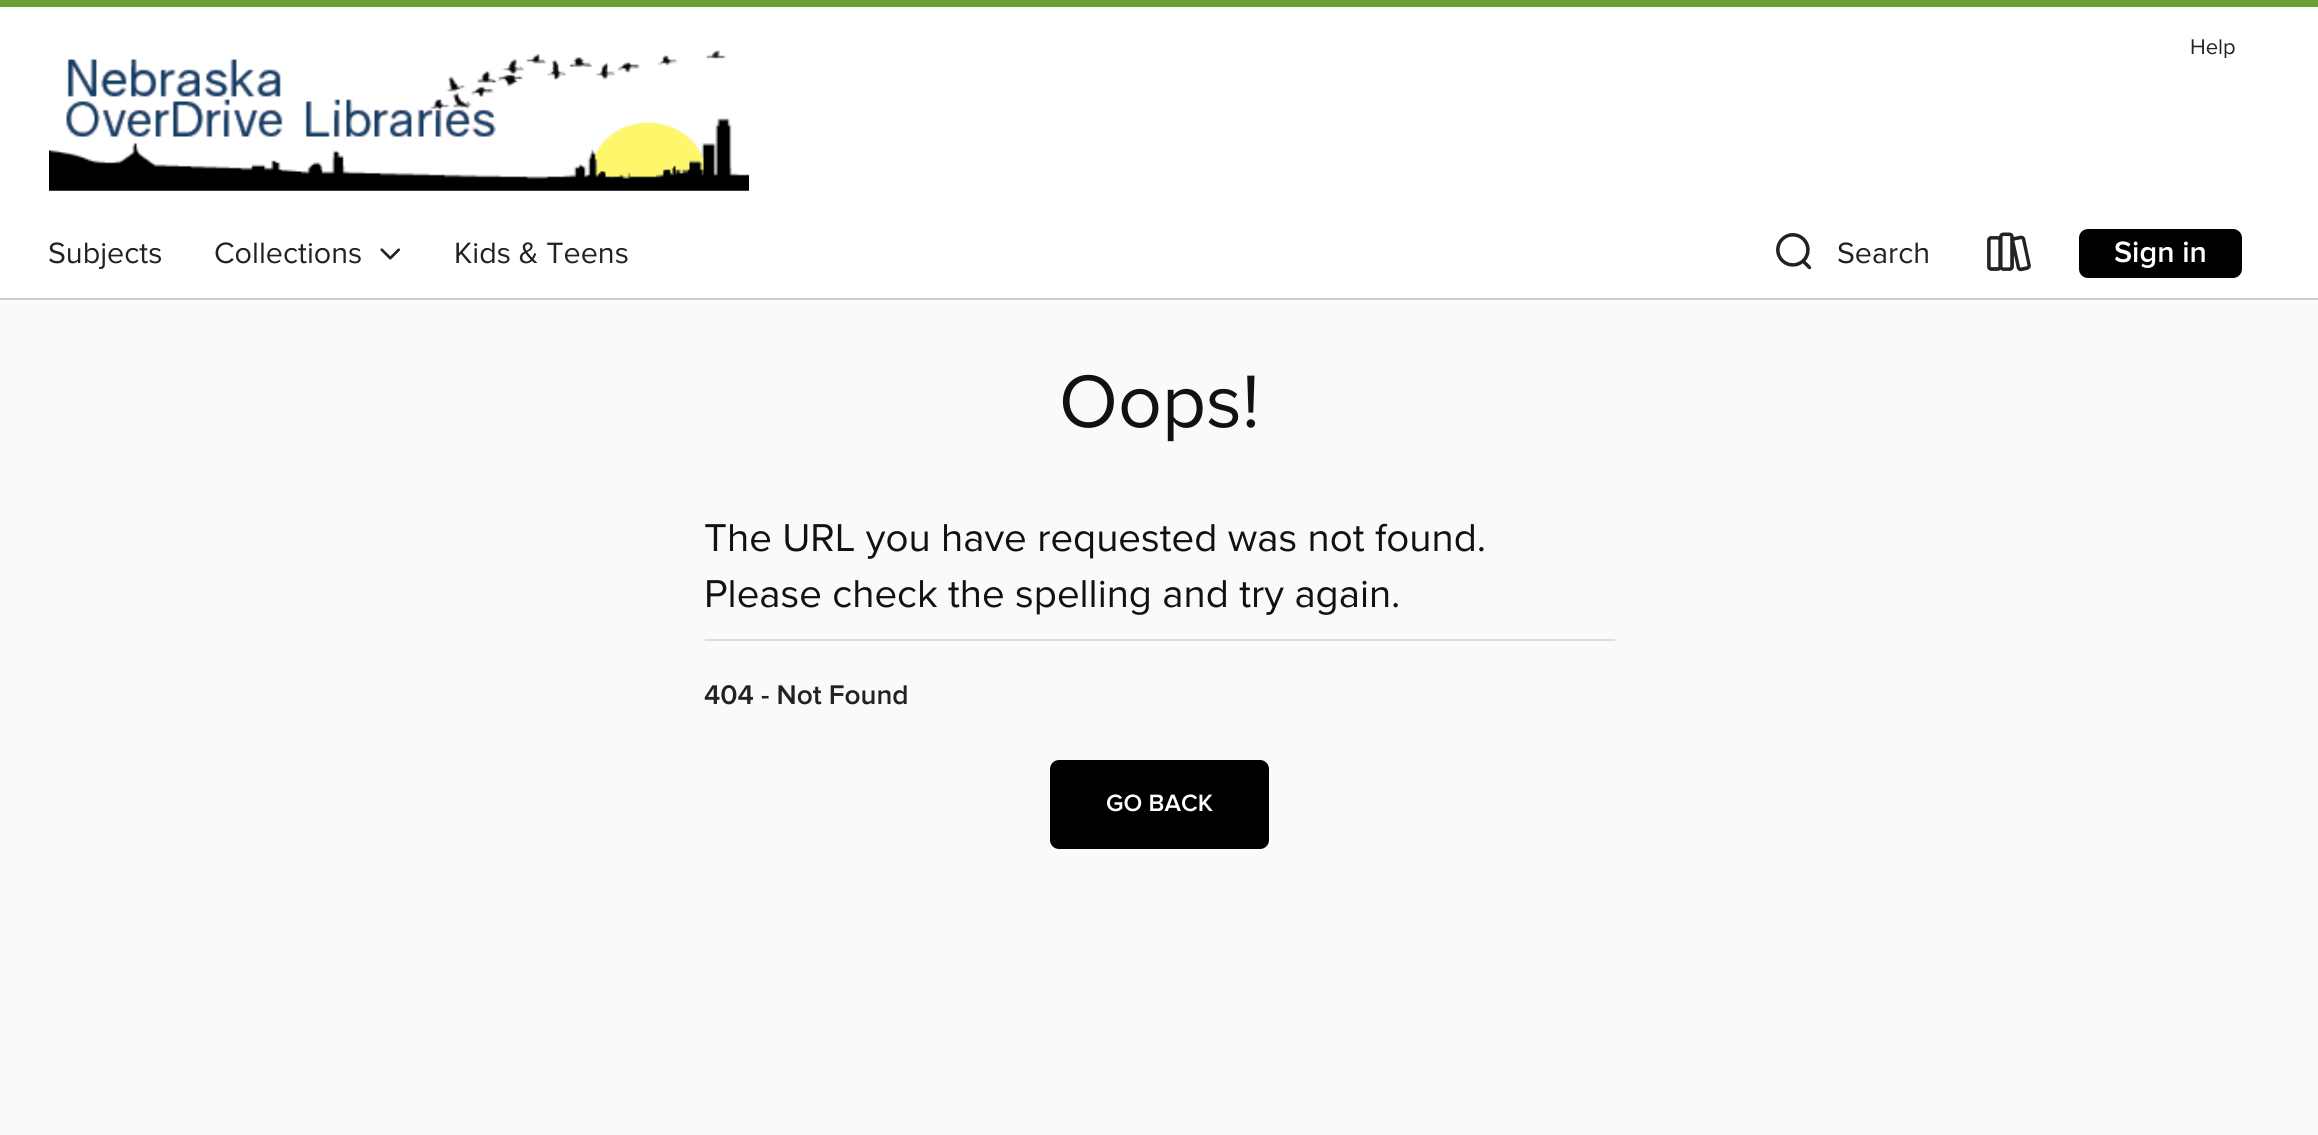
#include <cairo/cairo.h>
#include <math.h>
#include <stddef.h>

typedef struct { double x, y; const char *s; } line_t;
typedef struct { double x, y, w, h; unsigned color; } box_t;
static cairo_t *cr;

static void rgb(unsigned color)
{
	cairo_set_source_rgb(cr, (color >> 16) / 255.0, (color >> 8 & 255) / 255.0, (color & 255) / 255.0);
}

static void rrect(double x, double y, double w, double h, double r)
{
	cairo_new_sub_path(cr);
	cairo_arc(cr, x + w - r, y + h - r, r, 0, M_PI / 2);
	cairo_arc(cr, x + r, y + h - r, r, M_PI / 2, M_PI);
	cairo_arc(cr, x + r, y + r, r, M_PI, 1.5 * M_PI);
	cairo_arc(cr, x + w - r, y + r, r, 1.5 * M_PI, 2 * M_PI);
	cairo_close_path(cr);
}

static void image(const char *path, double x, double y, double w, double h)
{
	cairo_surface_t *image = cairo_image_surface_create_from_png(path);
	cairo_save(cr);
	cairo_set_source_surface(cr, image, x, y);
	cairo_rectangle(cr, x, y, w, h);
	cairo_fill(cr);
	cairo_restore(cr);
	cairo_surface_destroy(image);
}

int main(void) {
	cairo_surface_t *surface = cairo_image_surface_create(CAIRO_FORMAT_RGB24, 2318, 1135);
	cr = cairo_create(surface);
	cairo_font_options_t *options = cairo_font_options_create();
	cairo_font_options_set_hint_metrics(options, CAIRO_HINT_METRICS_OFF);
	cairo_font_options_set_hint_style(options, CAIRO_HINT_STYLE_NONE);
	cairo_set_font_options(cr, options);
	cairo_set_miter_limit(cr, 4);
	rgb(0xfafafa);
	cairo_paint(cr);
	{
		static const box_t items[] = {
			{0, 7, 2318, 291, 0xffffff},
			{0, 0, 2318, 7, 0x6aa035},
			{0, 298, 2318, 2, 0xcccccc},
		};
		for (size_t i = 0; i < sizeof items / sizeof *items; i++) {
			rgb(items[i].color);
			cairo_rectangle(cr, items[i].x, items[i].y, items[i].w, items[i].h);
			cairo_fill(cr);
		}
	}
	image("img/1.png", 49, 50, 700, 141);
	image("img/2.png", 380, 248, 20, 12);
	image("img/3.png", 1776, 233, 36, 37);
	image("img/4.png", 1987, 232, 44, 40);
	rgb(0x000000);
	rrect(2079, 229, 163, 49, 9);
	cairo_fill(cr);
	rgb(0xdddddd);
	cairo_rectangle(cr, 705, 639, 910, 2);
	cairo_fill(cr);
	rgb(0x000000);
	rrect(1050, 760, 219, 89, 9);
	cairo_fill(cr);
	cairo_select_font_face(cr, "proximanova", CAIRO_FONT_SLANT_NORMAL, CAIRO_FONT_WEIGHT_NORMAL);
	cairo_set_font_size(cr, 22);
	rgb(0x222222);
	cairo_move_to(cr, 2190, 54);
	cairo_show_text(cr, "Help");
	cairo_set_font_size(cr, 30.5);
	{
		static const line_t items[] = {
			{48, 263, "Subjects"},
			{214, 263, "Collections"},
			{454, 263, "Kids & Teens"},
			{1837, 263, "Search"},
		};
		for (size_t i = 0; i < sizeof items / sizeof *items; i++) {
			cairo_move_to(cr, items[i].x, items[i].y);
			cairo_show_text(cr, items[i].s);
		}
	}
	cairo_select_font_face(cr, "Proxima Nova SemiBold", CAIRO_FONT_SLANT_NORMAL, CAIRO_FONT_WEIGHT_NORMAL);
	rgb(0xffffff);
	cairo_move_to(cr, 2114, 262);
	cairo_show_text(cr, "Sign in");
	cairo_select_font_face(cr, "proximanova", CAIRO_FONT_SLANT_NORMAL, CAIRO_FONT_WEIGHT_NORMAL);
	cairo_set_font_size(cr, 77);
	rgb(0x111111);
	cairo_move_to(cr, 1059, 427);
	cairo_show_text(cr, "Oops!");
	cairo_set_font_size(cr, 40.25);
	cairo_move_to(cr, 704, 551);
	cairo_show_text(cr, "The URL you have requested was not found.");
	cairo_move_to(cr, 704, 607);
	cairo_show_text(cr, "Please check the spelling and try again.");
	cairo_select_font_face(cr, "Proxima Nova SemiBold", CAIRO_FONT_SLANT_NORMAL, CAIRO_FONT_WEIGHT_NORMAL);
	cairo_set_font_size(cr, 28);
	rgb(0x222222);
	cairo_move_to(cr, 704, 704);
	cairo_show_text(cr, "404 - Not Found");
	cairo_set_font_size(cr, 24.5);
	rgb(0xffffff);
	cairo_move_to(cr, 1106, 811);
	cairo_show_text(cr, "GO BACK");
	cairo_surface_write_to_png(surface, "page.png");
	cairo_font_options_destroy(options);
	cairo_destroy(cr);
	cairo_surface_destroy(surface);
	return 0;
}
